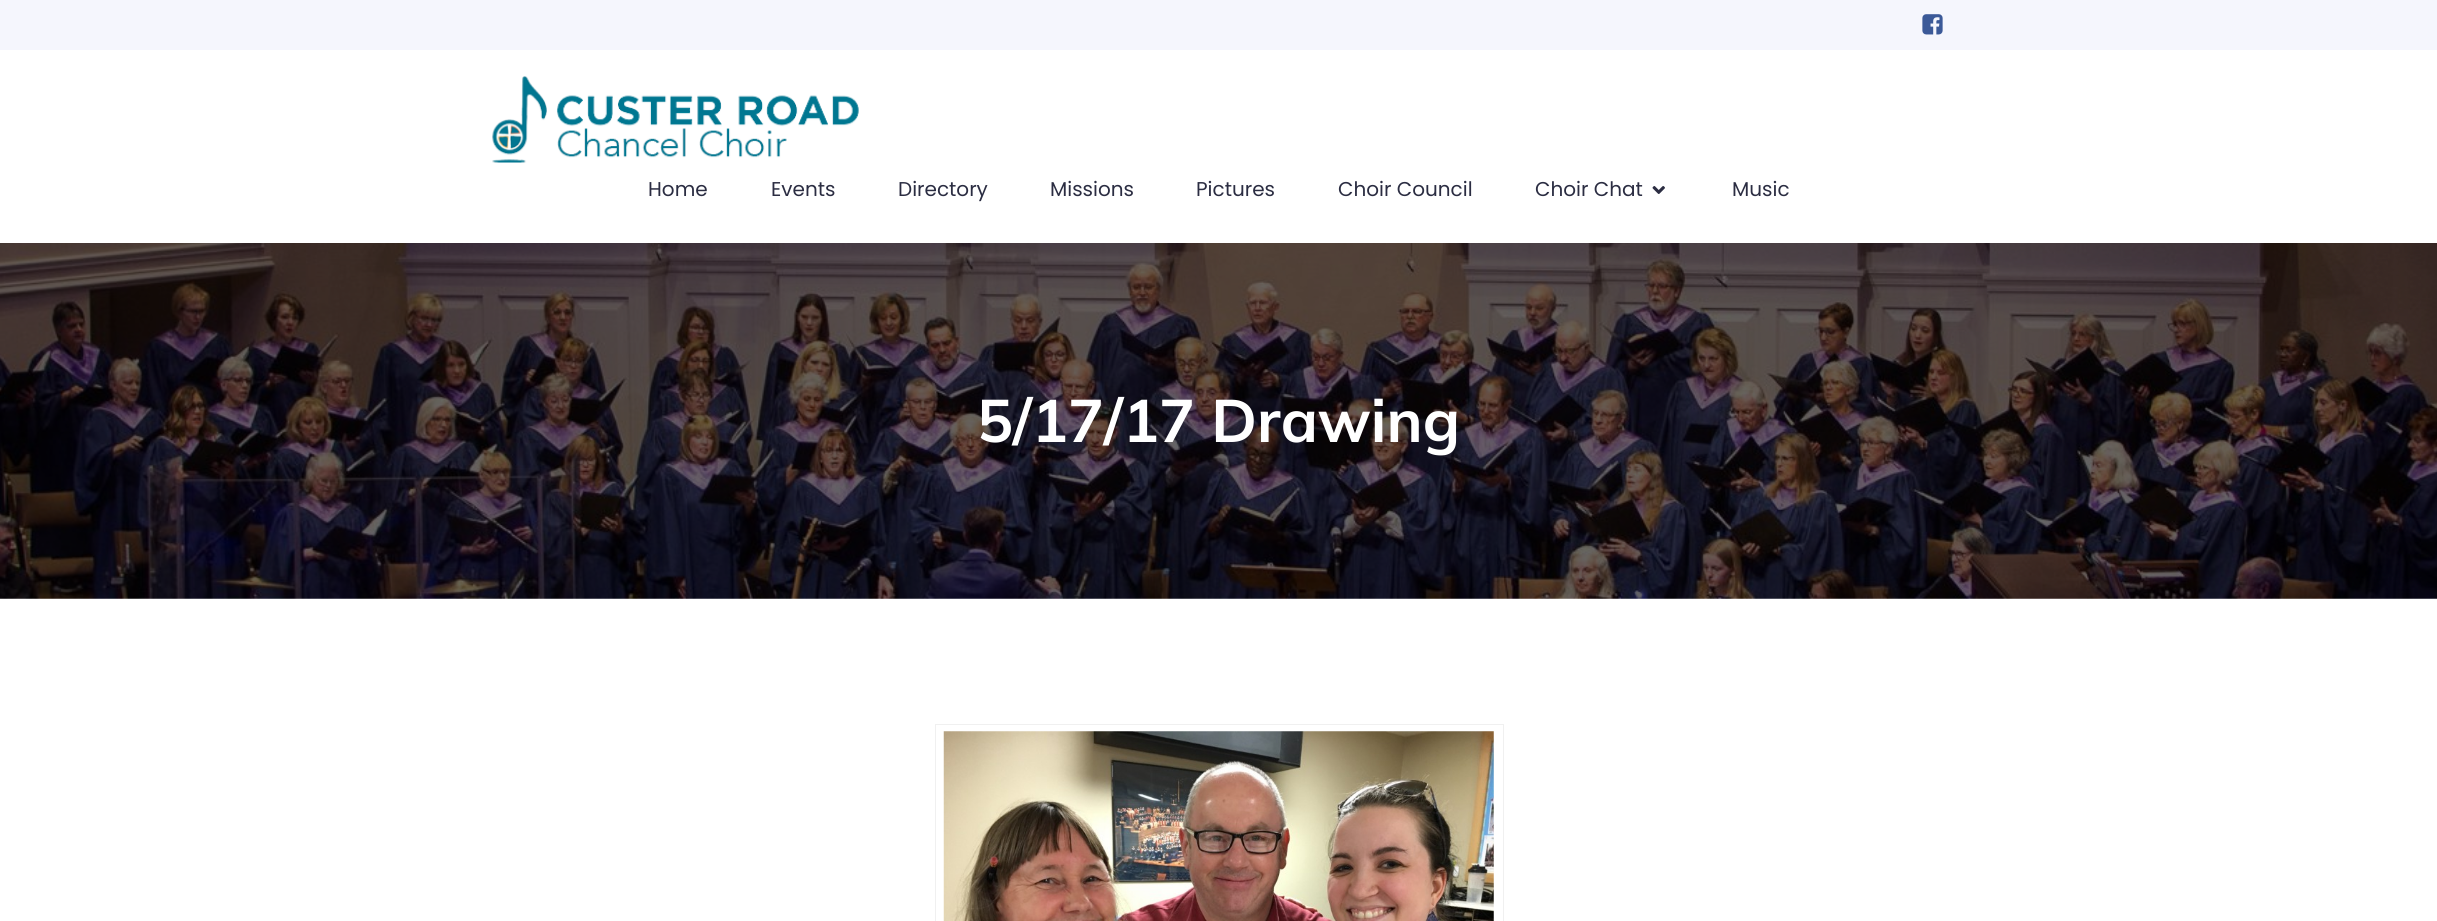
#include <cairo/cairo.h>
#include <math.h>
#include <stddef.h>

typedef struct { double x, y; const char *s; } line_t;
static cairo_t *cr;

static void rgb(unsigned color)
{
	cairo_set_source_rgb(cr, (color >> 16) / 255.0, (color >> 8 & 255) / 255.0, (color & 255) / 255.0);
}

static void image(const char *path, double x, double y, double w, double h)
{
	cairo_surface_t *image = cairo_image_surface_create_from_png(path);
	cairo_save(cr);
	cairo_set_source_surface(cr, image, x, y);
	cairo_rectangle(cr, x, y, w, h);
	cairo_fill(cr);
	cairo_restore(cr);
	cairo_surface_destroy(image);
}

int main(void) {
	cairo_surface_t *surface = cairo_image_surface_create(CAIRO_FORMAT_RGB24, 2437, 921);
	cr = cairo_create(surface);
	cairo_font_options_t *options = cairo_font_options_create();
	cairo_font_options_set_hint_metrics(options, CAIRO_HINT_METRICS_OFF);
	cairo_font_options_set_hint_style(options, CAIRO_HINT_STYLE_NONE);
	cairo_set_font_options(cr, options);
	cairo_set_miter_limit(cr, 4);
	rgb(0xffffff);
	cairo_paint(cr);
	rgb(0xf5f6fd);
	cairo_rectangle(cr, 0, 0, 2437, 50);
	cairo_fill(cr);
	image("img/1.png", 1922, 14, 21, 21);
	image("img/2.png", 492, 76, 367, 87);
	image("img/3.png", 1652, 186, 13, 8);
	image("img/4.png", 0, 243, 2437, 356);
	cairo_rectangle(cr, 935.5, 724.5, 568, 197);
	rgb(0xf0f0f0);
	cairo_set_line_width(cr, 1);
	cairo_stroke(cr);
	image("img/5.png", 943, 731, 551, 190);
	cairo_select_font_face(cr, "Poppins", CAIRO_FONT_SLANT_NORMAL, CAIRO_FONT_WEIGHT_NORMAL);
	cairo_set_font_size(cr, 20);
	rgb(0x2b2d42);
	{
		static const line_t items[] = {
			{648, 196, "Home"},
			{771, 196, "Events"},
			{898, 196, "Directory"},
			{1050, 196, "Missions"},
			{1196, 196, "Pictures"},
			{1338, 196, "Choir Council"},
			{1535, 196, "Choir Chat"},
			{1732, 196, "Music"},
		};
		for (size_t i = 0; i < sizeof items / sizeof *items; i++) {
			cairo_move_to(cr, items[i].x, items[i].y);
			cairo_show_text(cr, items[i].s);
		}
	}
	cairo_select_font_face(cr, "Mulish", CAIRO_FONT_SLANT_NORMAL, CAIRO_FONT_WEIGHT_BOLD);
	cairo_set_font_size(cr, 60);
	rgb(0xffffff);
	cairo_move_to(cr, 977, 442);
	cairo_show_text(cr, "5/17/17 Drawing");
	cairo_surface_write_to_png(surface, "page.png");
	cairo_font_options_destroy(options);
	cairo_destroy(cr);
	cairo_surface_destroy(surface);
	return 0;
}
